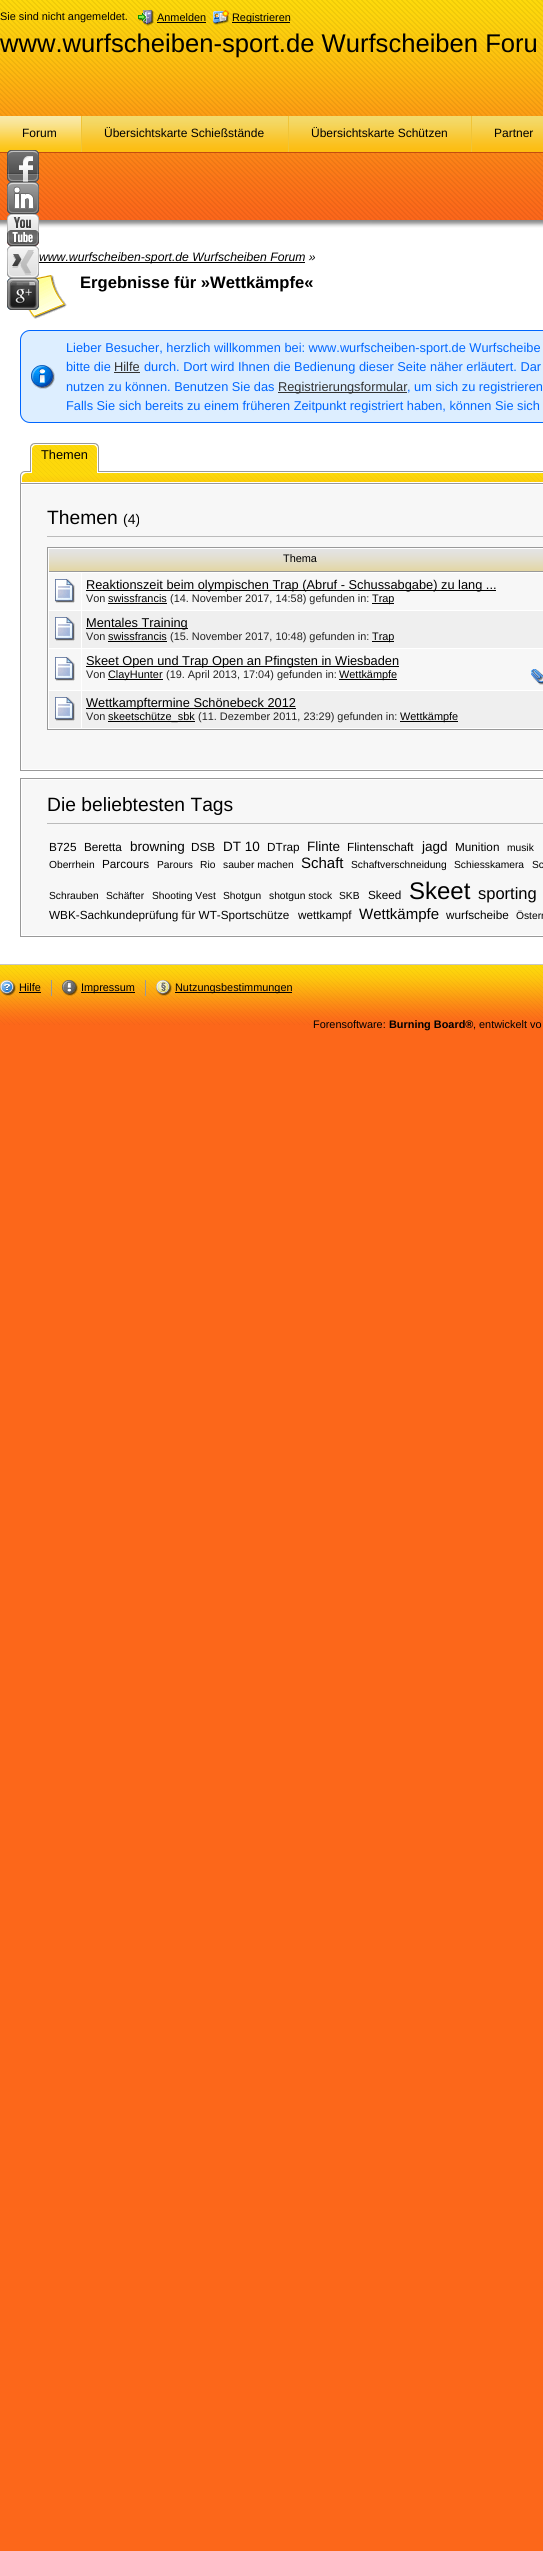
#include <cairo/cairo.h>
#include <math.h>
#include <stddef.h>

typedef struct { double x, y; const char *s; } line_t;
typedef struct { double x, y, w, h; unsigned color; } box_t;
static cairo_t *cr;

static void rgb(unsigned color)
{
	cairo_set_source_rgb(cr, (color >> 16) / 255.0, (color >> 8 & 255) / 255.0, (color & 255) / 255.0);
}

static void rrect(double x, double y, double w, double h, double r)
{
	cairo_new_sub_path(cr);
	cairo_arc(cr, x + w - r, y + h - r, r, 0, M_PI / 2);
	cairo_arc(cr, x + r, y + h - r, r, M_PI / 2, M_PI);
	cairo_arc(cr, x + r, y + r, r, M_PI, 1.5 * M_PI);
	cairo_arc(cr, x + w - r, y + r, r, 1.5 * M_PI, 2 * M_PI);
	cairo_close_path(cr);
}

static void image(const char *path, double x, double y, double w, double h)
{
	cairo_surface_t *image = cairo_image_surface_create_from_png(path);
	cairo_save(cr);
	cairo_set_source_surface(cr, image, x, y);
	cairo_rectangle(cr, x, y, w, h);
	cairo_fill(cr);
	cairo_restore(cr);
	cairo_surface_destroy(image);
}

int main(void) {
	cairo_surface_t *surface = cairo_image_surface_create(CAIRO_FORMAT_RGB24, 543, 2551);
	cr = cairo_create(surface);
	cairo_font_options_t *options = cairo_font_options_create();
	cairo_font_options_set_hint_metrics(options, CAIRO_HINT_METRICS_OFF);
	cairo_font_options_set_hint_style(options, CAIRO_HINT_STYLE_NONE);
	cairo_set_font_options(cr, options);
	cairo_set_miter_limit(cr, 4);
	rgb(0xfc671a);
	cairo_paint(cr);
	rgb(0xffffff);
	cairo_rectangle(cr, 0, 228, 543, 736);
	cairo_fill(cr);
	image("img/1.png", 0, 0, 543, 228);
	image("img/2.png", 138, 10, 16, 16);
	rgb(0x000000);
	cairo_rectangle(cr, 157, 22, 49, 1);
	cairo_fill(cr);
	image("img/3.png", 213, 10, 16, 15);
	cairo_rectangle(cr, 232, 22, 58, 1);
	cairo_fill(cr);
	image("img/4.png", 0, 116, 543, 37);
	image("img/5.png", 0, 116, 81, 36);
	{
		static const box_t items[] = {
			{81, 116, 1, 36, 0xf0c438},
			{288, 116, 1, 36, 0xf0c438},
			{471, 116, 1, 36, 0xf0c438},
		};
		for (size_t i = 0; i < sizeof items / sizeof *items; i++) {
			rgb(items[i].color);
			cairo_rectangle(cr, items[i].x, items[i].y, items[i].w, items[i].h);
			cairo_fill(cr);
		}
	}
	image("img/6.png", 7, 150, 32, 32);
	image("img/7.png", 7, 150, 32, 32);
	image("img/8.png", 7, 182, 32, 32);
	image("img/9.png", 7, 182, 32, 32);
	image("img/10.png", 7, 214, 32, 32);
	image("img/11.png", 7, 214, 32, 32);
	image("img/16.png", 28, 275, 39, 44);
	image("img/12.png", 7, 246, 32, 32);
	image("img/13.png", 7, 246, 32, 32);
	image("img/14.png", 7, 278, 32, 32);
	image("img/15.png", 7, 278, 32, 32);
	rgb(0x000000);
	cairo_rectangle(cr, 39, 262, 266, 1);
	cairo_fill(cr);
	rgb(0xddeeff);
	rrect(20, 330, 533, 93, 10);
	cairo_fill(cr);
	image("img/17.png", 31, 365, 24, 24);
	rrect(20.5, 330.5, 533, 92, 9.5);
	rgb(0x0066ff);
	cairo_set_line_width(cr, 1);
	cairo_stroke(cr);
	rgb(0x333333);
	cairo_rectangle(cr, 114, 372, 26, 1);
	cairo_fill(cr);
	cairo_rectangle(cr, 278, 392, 129, 1);
	cairo_fill(cr);
	rgb(0x999999);
	cairo_set_fill_rule(cr, CAIRO_FILL_RULE_EVEN_ODD);
	cairo_new_path(cr);
	cairo_move_to(cr, 35, 443);
	cairo_line_to(cr, 94, 443);
	cairo_curve_to(cr, 97, 443, 99, 445, 99, 448);
	cairo_line_to(cr, 99, 473);
	cairo_line_to(cr, 30, 473);
	cairo_line_to(cr, 30, 448);
	cairo_curve_to(cr, 30, 445, 32, 443, 35, 443);
	cairo_close_path(cr);
	cairo_move_to(cr, 35, 444);
	cairo_line_to(cr, 94, 444);
	cairo_curve_to(cr, 96, 444, 98, 446, 98, 448);
	cairo_line_to(cr, 98, 473);
	cairo_line_to(cr, 31, 473);
	cairo_line_to(cr, 31, 448);
	cairo_curve_to(cr, 31, 446, 33, 444, 35, 444);
	cairo_close_path(cr);
	cairo_fill(cr);
	cairo_rectangle(cr, 20.5, 483.5, 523, 287);
	cairo_stroke(cr);
	rgb(0xffffff);
	cairo_new_path(cr);
	cairo_move_to(cr, 25, 471.5);
	cairo_line_to(cr, 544, 471.5);
	cairo_curve_to(cr, 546.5, 471.5, 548.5, 473.5, 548.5, 476);
	cairo_line_to(cr, 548.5, 483.5);
	cairo_line_to(cr, 20.5, 483.5);
	cairo_line_to(cr, 20.5, 476);
	cairo_curve_to(cr, 20.5, 473.5, 22.5, 471.5, 25, 471.5);
	cairo_close_path(cr);
	cairo_fill_preserve(cr);
	rgb(0x999999);
	cairo_stroke(cr);
	image("img/18.png", 31, 444, 67, 29);
	rgb(0xffffff);
	cairo_new_path(cr);
	cairo_move_to(cr, 36, 444);
	cairo_line_to(cr, 93, 444);
	cairo_curve_to(cr, 96, 444, 98, 446, 98, 449);
	cairo_line_to(cr, 98, 473);
	cairo_line_to(cr, 31, 473);
	cairo_line_to(cr, 31, 449);
	cairo_curve_to(cr, 31, 446, 33, 444, 36, 444);
	cairo_close_path(cr);
	cairo_move_to(cr, 36, 445);
	cairo_line_to(cr, 93, 445);
	cairo_curve_to(cr, 95, 445, 97, 447, 97, 449);
	cairo_line_to(cr, 97, 473);
	cairo_line_to(cr, 32, 473);
	cairo_line_to(cr, 32, 449);
	cairo_curve_to(cr, 32, 447, 34, 445, 36, 445);
	cairo_close_path(cr);
	cairo_fill(cr);
	image("img/19.png", 22, 473, 521, 9);
	rgb(0xf7f7f7);
	cairo_rectangle(cr, 22, 485, 521, 284);
	cairo_fill(cr);
	rgb(0xbbbbbb);
	cairo_rectangle(cr, 47, 536, 496, 1);
	cairo_fill(cr);
	rgb(0xffffff);
	cairo_rectangle(cr, 47.5, 547.5, 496, 182);
	cairo_fill_preserve(cr);
	rgb(0x999999);
	cairo_stroke(cr);
	rgb(0xcecece);
	cairo_rectangle(cr, 49, 549, 494, 22);
	cairo_fill(cr);
	image("img/20.png", 49, 549, 494, 22);
	{
		static const box_t items[] = {
			{49, 571, 494, 1, 0x999999},
			{49, 573, 494, 37, 0xf7f7f7},
			{81, 573, 1, 38, 0xffffff},
		};
		for (size_t i = 0; i < sizeof items / sizeof *items; i++) {
			rgb(items[i].color);
			cairo_rectangle(cr, items[i].x, items[i].y, items[i].w, items[i].h);
			cairo_fill(cr);
		}
	}
	image("img/21.png", 55, 579, 20, 24);
	{
		static const box_t items[] = {
			{86, 590, 410, 1, 0x000000},
			{108, 603, 59, 1, 0x000000},
			{372, 603, 22, 1, 0x000000},
			{49, 611, 494, 37, 0xefefef},
			{81, 611, 1, 38, 0xffffff},
		};
		for (size_t i = 0; i < sizeof items / sizeof *items; i++) {
			rgb(items[i].color);
			cairo_rectangle(cr, items[i].x, items[i].y, items[i].w, items[i].h);
			cairo_fill(cr);
		}
	}
	image("img/22.png", 55, 617, 20, 24);
	{
		static const box_t items[] = {
			{86, 628, 102, 1, 0x000000},
			{108, 641, 59, 1, 0x000000},
			{372, 641, 22, 1, 0x000000},
			{49, 649, 494, 41, 0xf7f7f7},
			{81, 649, 1, 42, 0xffffff},
		};
		for (size_t i = 0; i < sizeof items / sizeof *items; i++) {
			rgb(items[i].color);
			cairo_rectangle(cr, items[i].x, items[i].y, items[i].w, items[i].h);
			cairo_fill(cr);
		}
	}
	image("img/21.png", 55, 657, 20, 24);
	{
		static const box_t items[] = {
			{86, 666, 313, 1, 0x000000},
			{108, 679, 55, 1, 0x000000},
			{339, 679, 58, 1, 0x000000},
		};
		for (size_t i = 0; i < sizeof items / sizeof *items; i++) {
			rgb(items[i].color);
			cairo_rectangle(cr, items[i].x, items[i].y, items[i].w, items[i].h);
			cairo_fill(cr);
		}
	}
	image("img/23.png", 531, 669, 12, 16);
	rgb(0xefefef);
	cairo_rectangle(cr, 49, 691, 494, 37);
	cairo_fill(cr);
	rgb(0xffffff);
	cairo_rectangle(cr, 81, 691, 1, 38);
	cairo_fill(cr);
	image("img/22.png", 55, 697, 20, 24);
	{
		static const box_t items[] = {
			{86, 708, 210, 1, 0x000000},
			{108, 721, 87, 1, 0x000000},
			{400, 721, 58, 1, 0x000000},
		};
		for (size_t i = 0; i < sizeof items / sizeof *items; i++) {
			rgb(items[i].color);
			cairo_rectangle(cr, items[i].x, items[i].y, items[i].w, items[i].h);
			cairo_fill(cr);
		}
	}
	cairo_rectangle(cr, 20.5, 778.5, 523, 158);
	rgb(0x999999);
	cairo_stroke(cr);
	rgb(0xf7f7f7);
	cairo_rectangle(cr, 22, 780, 521, 155);
	cairo_fill(cr);
	rgb(0xbbbbbb);
	cairo_rectangle(cr, 47, 823, 496, 1);
	cairo_fill(cr);
	image("img/24.png", 0, 965, 543, 60);
	rgb(0xc7c7c7);
	cairo_rectangle(cr, 0, 964, 543, 1);
	cairo_fill(cr);
	image("img/25.png", 0, 980, 16, 16);
	rgb(0x000000);
	cairo_rectangle(cr, 19, 992, 22, 1);
	cairo_fill(cr);
	rgb(0x999999);
	cairo_rectangle(cr, 51, 980, 1, 16);
	cairo_fill(cr);
	image("img/26.png", 62, 980, 16, 16);
	rgb(0x000000);
	cairo_rectangle(cr, 81, 992, 54, 1);
	cairo_fill(cr);
	rgb(0x999999);
	cairo_rectangle(cr, 145, 980, 1, 16);
	cairo_fill(cr);
	image("img/27.png", 156, 980, 16, 16);
	rgb(0x000000);
	cairo_rectangle(cr, 175, 992, 117, 1);
	cairo_fill(cr);
	cairo_select_font_face(cr, "Liberation Sans", CAIRO_FONT_SLANT_NORMAL, CAIRO_FONT_WEIGHT_NORMAL);
	cairo_set_font_size(cr, 10.9);
	{
		static const line_t items[] = {
			{0, 20, "Sie sind nicht angemeldet."},
			{157, 21, "Anmelden"},
			{232, 21, "Registrieren"},
		};
		for (size_t i = 0; i < sizeof items / sizeof *items; i++) {
			cairo_move_to(cr, items[i].x, items[i].y);
			cairo_show_text(cr, items[i].s);
		}
	}
	cairo_set_font_size(cr, 25.6);
	cairo_move_to(cr, 0, 52);
	cairo_show_text(cr, "www.wurfscheiben-sport.de Wurfscheiben Foru");
	cairo_set_font_size(cr, 12);
	{
		static const line_t items[] = {
			{22, 137, "Forum"},
			{104, 137, "Übersichtskarte Schießstände"},
			{311, 137, "Übersichtskarte Schützen"},
			{494, 137, "Partner"},
		};
		for (size_t i = 0; i < sizeof items / sizeof *items; i++) {
			cairo_move_to(cr, items[i].x, items[i].y);
			cairo_show_text(cr, items[i].s);
		}
	}
	cairo_select_font_face(cr, "Liberation Sans", CAIRO_FONT_SLANT_ITALIC, CAIRO_FONT_WEIGHT_NORMAL);
	cairo_set_font_size(cr, 12.2);
	cairo_move_to(cr, 39, 261);
	cairo_show_text(cr, "www.wurfscheiben-sport.de Wurfscheiben Forum »");
	cairo_select_font_face(cr, "Liberation Sans", CAIRO_FONT_SLANT_NORMAL, CAIRO_FONT_WEIGHT_BOLD);
	cairo_set_font_size(cr, 16.6);
	cairo_move_to(cr, 80, 288);
	cairo_show_text(cr, "Ergebnisse für »Wettkämpfe«");
	cairo_select_font_face(cr, "Liberation Sans", CAIRO_FONT_SLANT_NORMAL, CAIRO_FONT_WEIGHT_NORMAL);
	cairo_set_font_size(cr, 12.8);
	rgb(0x0066ff);
	cairo_move_to(cr, 66, 352);
	cairo_show_text(cr, "Lieber Besucher, herzlich willkommen bei: www.wurfscheiben-sport.de Wurfscheibe");
	cairo_move_to(cr, 66, 371);
	cairo_show_text(cr, "bitte die");
	rgb(0x333333);
	cairo_move_to(cr, 114, 371);
	cairo_show_text(cr, "Hilfe");
	rgb(0x0066ff);
	cairo_move_to(cr, 144, 371);
	cairo_show_text(cr, "durch. Dort wird Ihnen die Bedienung dieser Seite näher erläutert. Dar");
	cairo_move_to(cr, 66, 391);
	cairo_show_text(cr, "nutzen zu können. Benutzen Sie das");
	rgb(0x333333);
	cairo_move_to(cr, 278, 391);
	cairo_show_text(cr, "Registrierungsformular");
	rgb(0x0066ff);
	cairo_move_to(cr, 407, 391);
	cairo_show_text(cr, ", um sich zu registrieren");
	cairo_move_to(cr, 66, 410);
	cairo_show_text(cr, "Falls Sie sich bereits zu einem früheren Zeitpunkt registriert haben, können Sie sich");
	rgb(0x000000);
	cairo_move_to(cr, 41, 459);
	cairo_show_text(cr, "Themen");
	cairo_set_font_size(cr, 19.25);
	cairo_move_to(cr, 47, 524);
	cairo_show_text(cr, "Themen");
	cairo_set_font_size(cr, 14);
	cairo_move_to(cr, 123, 524);
	cairo_show_text(cr, "(4)");
	cairo_set_font_size(cr, 10.9);
	cairo_move_to(cr, 283, 562);
	cairo_show_text(cr, "Thema");
	cairo_set_font_size(cr, 12.8);
	cairo_move_to(cr, 86, 589);
	cairo_show_text(cr, "Reaktionszeit beim olympischen Trap (Abruf - Schussabgabe) zu lang ...");
	cairo_set_font_size(cr, 10.9);
	rgb(0x222222);
	cairo_move_to(cr, 86, 602);
	cairo_show_text(cr, "Von");
	rgb(0x000000);
	cairo_move_to(cr, 108, 602);
	cairo_show_text(cr, "swissfrancis");
	rgb(0x222222);
	cairo_move_to(cr, 170, 602);
	cairo_show_text(cr, "(14. November 2017, 14:58) gefunden in:");
	rgb(0x000000);
	cairo_move_to(cr, 372, 602);
	cairo_show_text(cr, "Trap");
	cairo_set_font_size(cr, 12.8);
	cairo_move_to(cr, 86, 627);
	cairo_show_text(cr, "Mentales Training");
	cairo_set_font_size(cr, 10.9);
	rgb(0x222222);
	cairo_move_to(cr, 86, 640);
	cairo_show_text(cr, "Von");
	rgb(0x000000);
	cairo_move_to(cr, 108, 640);
	cairo_show_text(cr, "swissfrancis");
	rgb(0x222222);
	cairo_move_to(cr, 170, 640);
	cairo_show_text(cr, "(15. November 2017, 10:48) gefunden in:");
	rgb(0x000000);
	cairo_move_to(cr, 372, 640);
	cairo_show_text(cr, "Trap");
	cairo_set_font_size(cr, 12.8);
	cairo_move_to(cr, 86, 665);
	cairo_show_text(cr, "Skeet Open und Trap Open an Pfingsten in Wiesbaden");
	cairo_set_font_size(cr, 10.9);
	rgb(0x222222);
	cairo_move_to(cr, 86, 678);
	cairo_show_text(cr, "Von");
	rgb(0x000000);
	cairo_move_to(cr, 108, 678);
	cairo_show_text(cr, "ClayHunter");
	rgb(0x222222);
	cairo_move_to(cr, 166, 678);
	cairo_show_text(cr, "(19. April 2013, 17:04) gefunden in:");
	rgb(0x000000);
	cairo_move_to(cr, 339, 678);
	cairo_show_text(cr, "Wettkämpfe");
	cairo_set_font_size(cr, 12.8);
	cairo_move_to(cr, 86, 707);
	cairo_show_text(cr, "Wettkampftermine Schönebeck 2012");
	cairo_set_font_size(cr, 10.9);
	rgb(0x222222);
	cairo_move_to(cr, 86, 720);
	cairo_show_text(cr, "Von");
	rgb(0x000000);
	cairo_move_to(cr, 108, 720);
	cairo_show_text(cr, "skeetschütze_sbk");
	rgb(0x222222);
	cairo_move_to(cr, 198, 720);
	cairo_show_text(cr, "(11. Dezember 2011, 23:29) gefunden in:");
	rgb(0x000000);
	cairo_move_to(cr, 400, 720);
	cairo_show_text(cr, "Wettkämpfe");
	cairo_set_font_size(cr, 19.25);
	cairo_move_to(cr, 47, 811);
	cairo_show_text(cr, "Die beliebtesten Tags");
	cairo_set_font_size(cr, 11.75);
	cairo_move_to(cr, 49, 851);
	cairo_show_text(cr, "B725");
	cairo_move_to(cr, 84, 851);
	cairo_show_text(cr, "Beretta");
	cairo_set_font_size(cr, 13.5);
	cairo_move_to(cr, 130, 851);
	cairo_show_text(cr, "browning");
	cairo_set_font_size(cr, 11.75);
	cairo_move_to(cr, 191, 851);
	cairo_show_text(cr, "DSB");
	cairo_set_font_size(cr, 13.5);
	cairo_move_to(cr, 223, 851);
	cairo_show_text(cr, "DT 10");
	cairo_set_font_size(cr, 11.75);
	cairo_move_to(cr, 267, 851);
	cairo_show_text(cr, "DTrap");
	cairo_set_font_size(cr, 13.5);
	cairo_move_to(cr, 307, 851);
	cairo_show_text(cr, "Flinte");
	cairo_set_font_size(cr, 11.75);
	cairo_move_to(cr, 347, 851);
	cairo_show_text(cr, "Flintenschaft");
	cairo_set_font_size(cr, 13.5);
	cairo_move_to(cr, 422, 851);
	cairo_show_text(cr, "jagd");
	cairo_set_font_size(cr, 11.75);
	cairo_move_to(cr, 455, 851);
	cairo_show_text(cr, "Munition");
	cairo_set_font_size(cr, 10.25);
	cairo_move_to(cr, 507, 851);
	cairo_show_text(cr, "musik");
	cairo_move_to(cr, 49, 868);
	cairo_show_text(cr, "Oberrhein");
	cairo_set_font_size(cr, 11.75);
	cairo_move_to(cr, 102, 868);
	cairo_show_text(cr, "Parcours");
	cairo_set_font_size(cr, 10.25);
	{
		static const line_t items[] = {
			{157, 868, "Parours"},
			{200, 868, "Rio"},
			{223, 868, "sauber machen"},
		};
		for (size_t i = 0; i < sizeof items / sizeof *items; i++) {
			cairo_move_to(cr, items[i].x, items[i].y);
			cairo_show_text(cr, items[i].s);
		}
	}
	cairo_set_font_size(cr, 15);
	cairo_move_to(cr, 301, 868);
	cairo_show_text(cr, "Schaft");
	cairo_set_font_size(cr, 10.25);
	{
		static const line_t items[] = {
			{351, 868, "Schaftverschneidung"},
			{454, 868, "Schiesskamera"},
			{532, 868, "Sc"},
			{49, 899, "Schrauben"},
			{106, 899, "Schäfter"},
			{152, 899, "Shooting Vest"},
			{223, 899, "Shotgun"},
			{269, 899, "shotgun stock"},
			{339, 899, "SKB"},
		};
		for (size_t i = 0; i < sizeof items / sizeof *items; i++) {
			cairo_move_to(cr, items[i].x, items[i].y);
			cairo_show_text(cr, items[i].s);
		}
	}
	cairo_set_font_size(cr, 11.75);
	cairo_move_to(cr, 368, 899);
	cairo_show_text(cr, "Skeed");
	cairo_set_font_size(cr, 24);
	cairo_move_to(cr, 409, 899);
	cairo_show_text(cr, "Skeet");
	cairo_set_font_size(cr, 16.5);
	cairo_move_to(cr, 478, 899);
	cairo_show_text(cr, "sporting");
	cairo_set_font_size(cr, 11.75);
	cairo_move_to(cr, 49, 919);
	cairo_show_text(cr, "WBK-Sachkundeprüfung für WT-Sportschütze");
	cairo_move_to(cr, 298, 919);
	cairo_show_text(cr, "wettkampf");
	cairo_set_font_size(cr, 15);
	cairo_move_to(cr, 359, 919);
	cairo_show_text(cr, "Wettkämpfe");
	cairo_set_font_size(cr, 11.75);
	cairo_move_to(cr, 446, 919);
	cairo_show_text(cr, "wurfscheibe");
	cairo_set_font_size(cr, 10.25);
	cairo_move_to(cr, 516, 919);
	cairo_show_text(cr, "Österr");
	cairo_set_font_size(cr, 10.9);
	{
		static const line_t items[] = {
			{19, 991, "Hilfe"},
			{81, 991, "Impressum"},
			{175, 991, "Nutzungsbestimmungen"},
			{313, 1028, "Forensoftware:"},
		};
		for (size_t i = 0; i < sizeof items / sizeof *items; i++) {
			cairo_move_to(cr, items[i].x, items[i].y);
			cairo_show_text(cr, items[i].s);
		}
	}
	cairo_select_font_face(cr, "Liberation Sans", CAIRO_FONT_SLANT_NORMAL, CAIRO_FONT_WEIGHT_BOLD);
	cairo_move_to(cr, 389, 1028);
	cairo_show_text(cr, "Burning Board®");
	cairo_select_font_face(cr, "Liberation Sans", CAIRO_FONT_SLANT_NORMAL, CAIRO_FONT_WEIGHT_NORMAL);
	cairo_move_to(cr, 473, 1028);
	cairo_show_text(cr, ", entwickelt vo");
	cairo_surface_write_to_png(surface, "page.png");
	cairo_font_options_destroy(options);
	cairo_destroy(cr);
	cairo_surface_destroy(surface);
	return 0;
}
